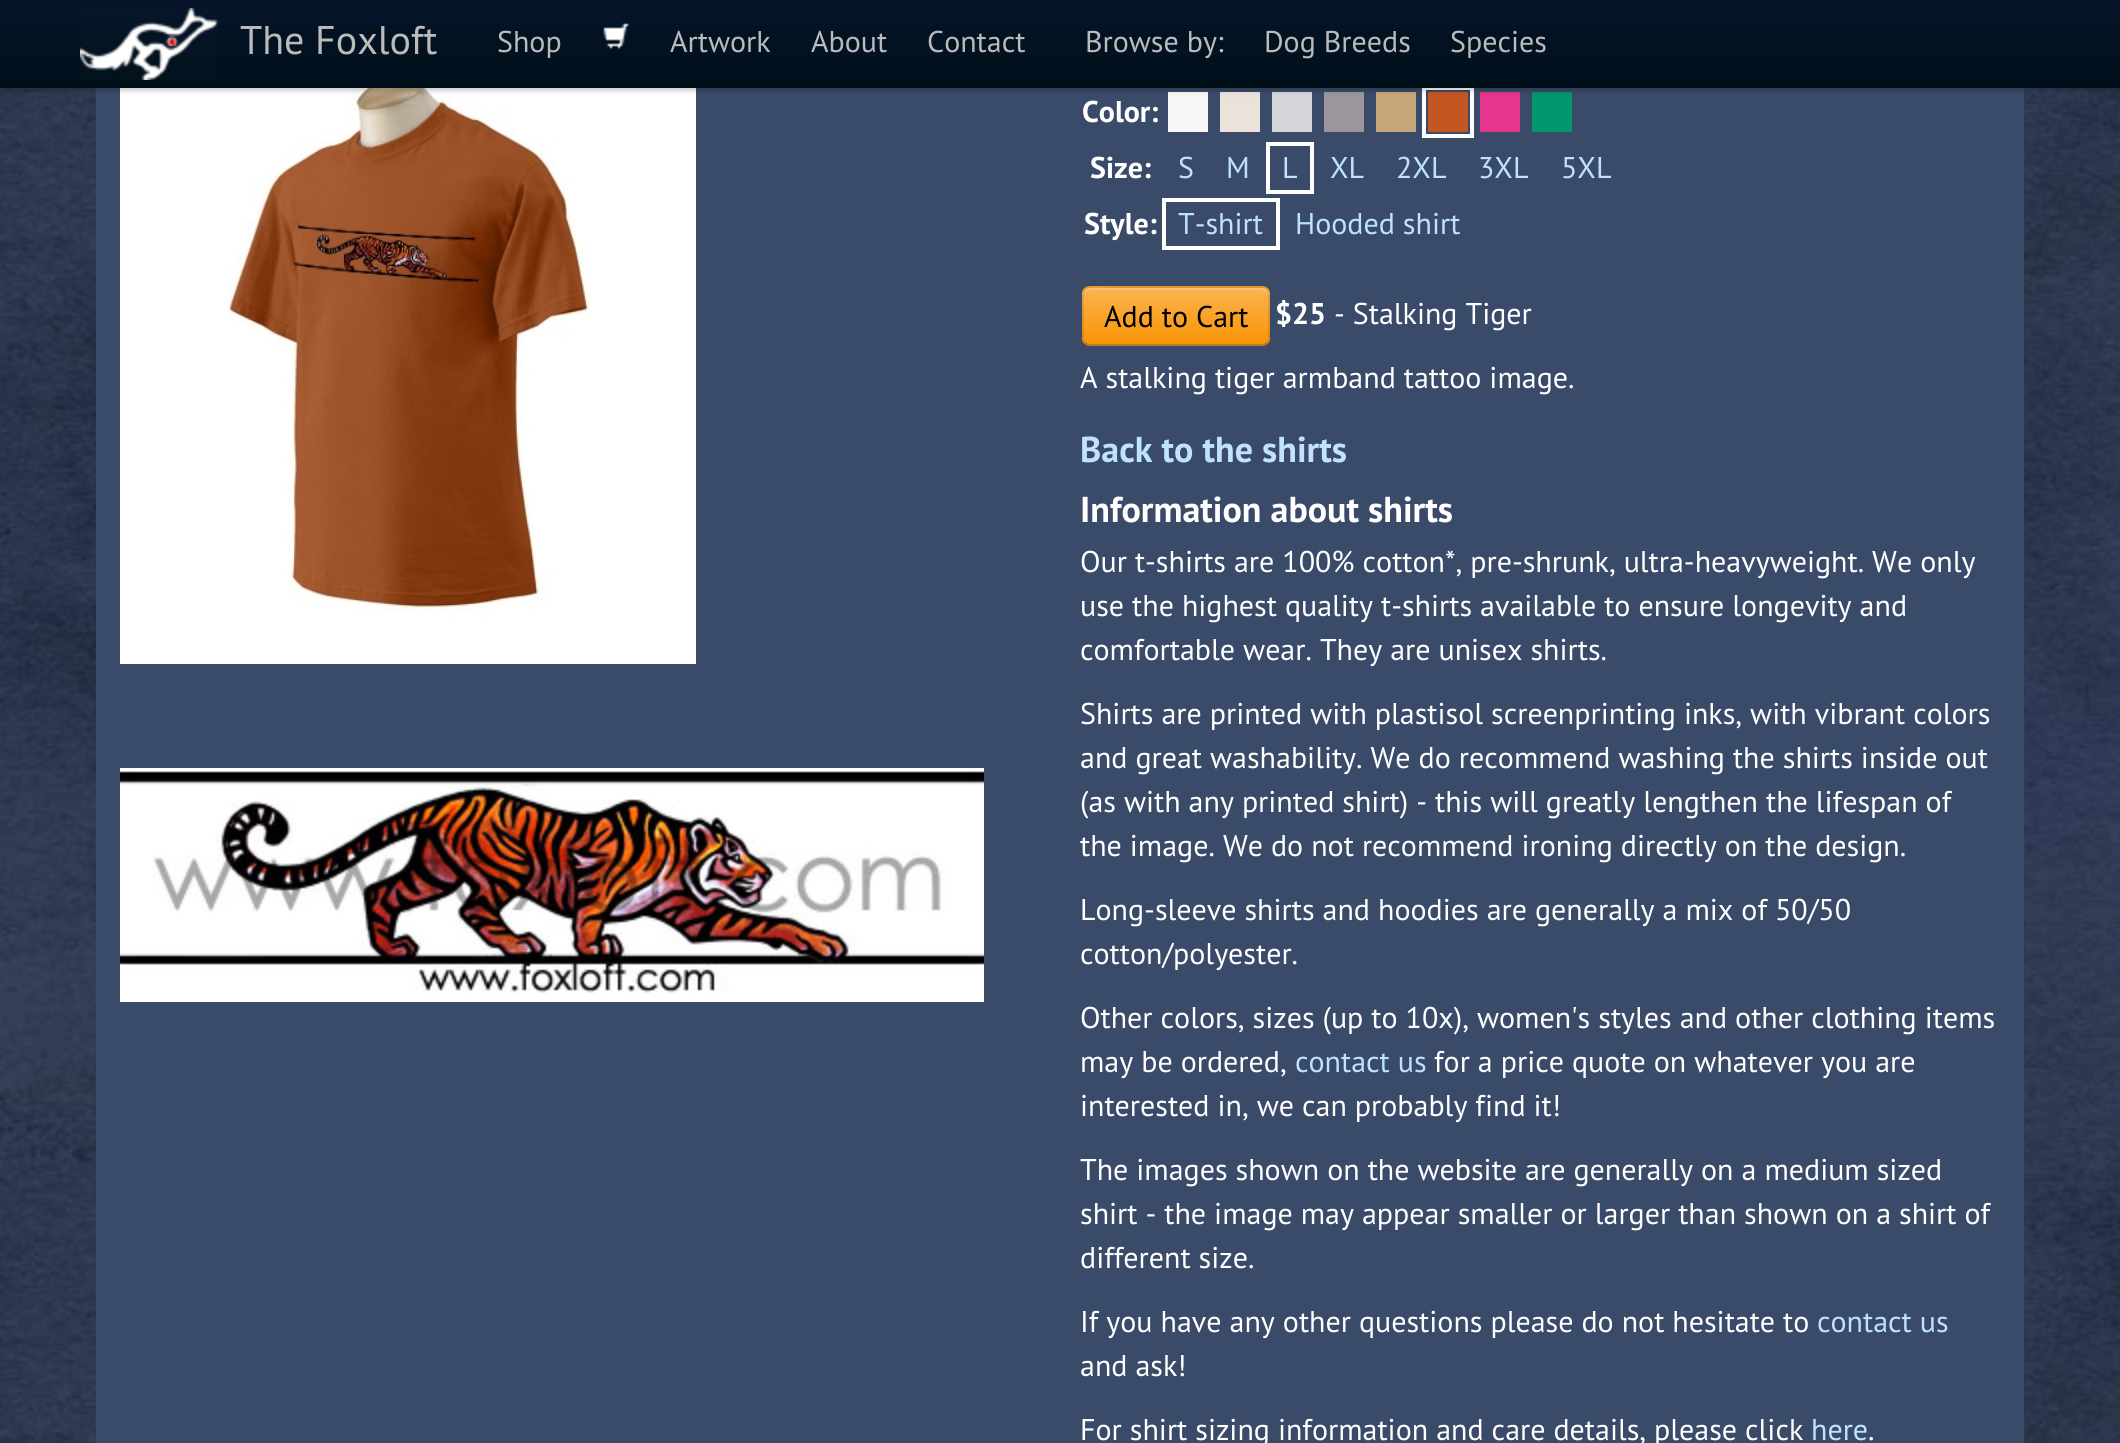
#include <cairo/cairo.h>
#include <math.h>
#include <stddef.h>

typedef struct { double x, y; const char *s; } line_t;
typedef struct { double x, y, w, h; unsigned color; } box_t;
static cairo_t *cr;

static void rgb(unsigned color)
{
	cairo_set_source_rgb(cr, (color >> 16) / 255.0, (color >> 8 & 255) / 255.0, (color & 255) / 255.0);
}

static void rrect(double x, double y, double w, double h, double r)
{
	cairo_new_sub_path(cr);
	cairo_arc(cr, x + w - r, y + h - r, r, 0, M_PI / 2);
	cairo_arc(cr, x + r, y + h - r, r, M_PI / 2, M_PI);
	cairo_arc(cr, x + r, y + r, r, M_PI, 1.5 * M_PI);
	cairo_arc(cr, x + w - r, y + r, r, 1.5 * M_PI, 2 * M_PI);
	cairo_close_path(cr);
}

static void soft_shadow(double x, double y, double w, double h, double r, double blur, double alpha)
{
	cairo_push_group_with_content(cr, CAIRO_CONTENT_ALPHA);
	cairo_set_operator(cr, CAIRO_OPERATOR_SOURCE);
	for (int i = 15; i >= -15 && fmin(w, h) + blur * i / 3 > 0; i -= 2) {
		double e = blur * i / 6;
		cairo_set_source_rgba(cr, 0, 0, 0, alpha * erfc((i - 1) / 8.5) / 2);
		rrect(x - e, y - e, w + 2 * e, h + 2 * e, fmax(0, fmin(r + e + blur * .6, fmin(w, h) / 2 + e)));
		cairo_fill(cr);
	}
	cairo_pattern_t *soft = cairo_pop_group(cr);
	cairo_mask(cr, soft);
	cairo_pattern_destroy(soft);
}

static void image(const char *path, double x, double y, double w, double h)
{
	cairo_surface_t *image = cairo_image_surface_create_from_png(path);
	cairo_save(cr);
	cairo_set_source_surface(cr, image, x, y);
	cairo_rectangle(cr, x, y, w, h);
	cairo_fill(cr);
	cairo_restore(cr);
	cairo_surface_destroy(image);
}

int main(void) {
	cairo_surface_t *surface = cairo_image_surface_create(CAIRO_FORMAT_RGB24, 2120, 1443);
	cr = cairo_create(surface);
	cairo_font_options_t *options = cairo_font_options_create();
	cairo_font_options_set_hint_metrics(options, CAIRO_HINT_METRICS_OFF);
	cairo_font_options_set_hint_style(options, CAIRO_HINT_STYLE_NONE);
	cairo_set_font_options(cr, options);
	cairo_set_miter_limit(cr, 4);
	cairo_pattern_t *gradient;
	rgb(0xffffff);
	cairo_paint(cr);
	image("img/1.png", 0, 88, 2120, 1355);
	rgb(0x3a4a69);
	cairo_rectangle(cr, 96, 88, 1928, 1355);
	cairo_fill(cr);
	image("img/4.png", 120, 88, 576, 576);
	{
		static const box_t items[] = {
			{1168, 92, 40, 40, 0xf8f7f8},
			{1220, 92, 40, 40, 0xece2dc},
			{1272, 92, 40, 40, 0xd4d6dc},
			{1324, 92, 40, 40, 0x9c969c},
			{1376, 92, 40, 40, 0xc7a77a},
		};
		for (size_t i = 0; i < sizeof items / sizeof *items; i++) {
			rgb(items[i].color);
			cairo_rectangle(cr, items[i].x, items[i].y, items[i].w, items[i].h);
			cairo_fill(cr);
		}
	}
	cairo_rectangle(cr, 1424, 88, 48, 48);
	rgb(0xffffff);
	cairo_set_line_width(cr, 4);
	cairo_stroke(cr);
	{
		static const box_t items[] = {
			{1428, 92, 40, 40, 0xc45624},
			{1480, 92, 40, 40, 0xe4368c},
			{1532, 92, 40, 40, 0x04966c},
		};
		for (size_t i = 0; i < sizeof items / sizeof *items; i++) {
			rgb(items[i].color);
			cairo_rectangle(cr, items[i].x, items[i].y, items[i].w, items[i].h);
			cairo_fill(cr);
		}
	}
	rgb(0x000000);
	soft_shadow(0, 2, 2120, 88, 0, 3, 0.25);
	gradient = cairo_pattern_create_linear(1060, 0, 1060, 88);
	cairo_pattern_add_color_stop_rgba(gradient, 0, 0.02, 0.078, 0.161, 1);
	cairo_pattern_add_color_stop_rgba(gradient, 1, 0, 0.063, 0.098, 1);
	cairo_set_source(cr, gradient);
	cairo_pattern_destroy(gradient);
	cairo_rectangle(cr, 0, 0, 2120, 86);
	cairo_fill(cr);
	rgb(0x000e17);
	cairo_rectangle(cr, 0, 86, 2120, 2);
	cairo_fill(cr);
	image("img/2.png", 80, 8, 138, 72);
	image("img/3.png", 603, 23, 26, 26);
	image("img/5.png", 120, 768, 864, 234);
	cairo_rectangle(cr, 1268, 144, 44, 48);
	rgb(0xffffff);
	cairo_stroke(cr);
	cairo_rectangle(cr, 1164, 200, 114, 48);
	cairo_stroke(cr);
	rgb(0xfaa732);
	rrect(1082, 286, 188, 60, 8);
	cairo_fill(cr);
	cairo_save(cr);
	rrect(1082, 286, 188, 60, 8);
	cairo_clip(cr);
	gradient = cairo_pattern_create_linear(1176, 288, 1176, 344);
	cairo_pattern_add_color_stop_rgba(gradient, 0, 0.984, 0.706, 0.314, 1);
	cairo_pattern_add_color_stop_rgba(gradient, 1, 0.973, 0.58, 0.024, 1);
	cairo_set_source(cr, gradient);
	cairo_pattern_destroy(gradient);
	cairo_rectangle(cr, 1082, 288, 188, 56);
	cairo_fill(cr);
	cairo_restore(cr);
	cairo_set_source_rgba(cr, 1, 1, 1, 0.2);
	cairo_new_path(cr);
	cairo_move_to(cr, 1090, 290);
	cairo_line_to(cr, 1262, 290);
	cairo_curve_to(cr, 1265, 290, 1268, 293, 1268, 296);
	cairo_line_to(cr, 1268, 294);
	cairo_curve_to(cr, 1268, 291, 1265, 288, 1262, 288);
	cairo_line_to(cr, 1090, 288);
	cairo_curve_to(cr, 1087, 288, 1084, 291, 1084, 294);
	cairo_line_to(cr, 1084, 296);
	cairo_curve_to(cr, 1084, 293, 1087, 290, 1090, 290);
	cairo_close_path(cr);
	cairo_fill(cr);
	cairo_new_path(cr);
	cairo_move_to(cr, 1267, 343);
	cairo_curve_to(cr, 1265.5, 344.5, 1264, 345, 1262, 345);
	cairo_line_to(cr, 1090, 345);
	cairo_curve_to(cr, 1088, 345, 1086.5, 344.5, 1085, 343);
	cairo_set_source_rgba(cr, 0, 0, 0, 0.25);
	cairo_set_line_width(cr, 2);
	cairo_stroke(cr);
	cairo_new_path(cr);
	cairo_move_to(cr, 1085, 343);
	cairo_curve_to(cr, 1082, 340, 1083, 334.5, 1083, 330.5);
	cairo_line_to(cr, 1083, 316);
	cairo_curve_to(cr, 1083, 280.5, 1079, 287, 1118.5, 287);
	cairo_line_to(cr, 1262, 287);
	cairo_curve_to(cr, 1270, 287, 1269, 296, 1269, 301.5);
	cairo_line_to(cr, 1269, 330.5);
	cairo_curve_to(cr, 1269, 334.5, 1270, 340, 1267, 343);
	cairo_set_source_rgba(cr, 0, 0, 0, 0.1);
	cairo_stroke(cr);
	cairo_select_font_face(cr, "PT Sans", CAIRO_FONT_SLANT_NORMAL, CAIRO_FONT_WEIGHT_NORMAL);
	cairo_set_font_size(cr, 40);
	rgb(0xbbbbbb);
	cairo_move_to(cr, 240, 54);
	cairo_show_text(cr, "The Foxloft");
	cairo_set_font_size(cr, 30);
	{
		static const line_t items[] = {
			{497, 52, "Shop"},
			{670, 52, "Artwork"},
			{811, 52, "About"},
			{927, 52, "Contact"},
			{1085, 52, "Browse by:"},
			{1264, 52, "Dog Breeds"},
			{1450, 52, "Species"},
		};
		for (size_t i = 0; i < sizeof items / sizeof *items; i++) {
			cairo_move_to(cr, items[i].x, items[i].y);
			cairo_show_text(cr, items[i].s);
		}
	}
	cairo_select_font_face(cr, "PT Sans", CAIRO_FONT_SLANT_NORMAL, CAIRO_FONT_WEIGHT_BOLD);
	rgb(0xffffff);
	cairo_move_to(cr, 1082, 122);
	cairo_show_text(cr, "Color:");
	cairo_move_to(cr, 1090, 178);
	cairo_show_text(cr, "Size:");
	cairo_select_font_face(cr, "PT Sans", CAIRO_FONT_SLANT_NORMAL, CAIRO_FONT_WEIGHT_NORMAL);
	rgb(0xbfe3ff);
	{
		static const line_t items[] = {
			{1178, 178, "S"},
			{1226, 178, "M"},
			{1282, 178, "L"},
			{1330, 178, "XL"},
			{1396, 178, "2XL"},
			{1478, 178, "3XL"},
			{1561, 178, "5XL"},
		};
		for (size_t i = 0; i < sizeof items / sizeof *items; i++) {
			cairo_move_to(cr, items[i].x, items[i].y);
			cairo_show_text(cr, items[i].s);
		}
	}
	cairo_select_font_face(cr, "PT Sans", CAIRO_FONT_SLANT_NORMAL, CAIRO_FONT_WEIGHT_BOLD);
	rgb(0xffffff);
	cairo_move_to(cr, 1084, 234);
	cairo_show_text(cr, "Style:");
	cairo_select_font_face(cr, "PT Sans", CAIRO_FONT_SLANT_NORMAL, CAIRO_FONT_WEIGHT_NORMAL);
	rgb(0xbfe3ff);
	cairo_move_to(cr, 1178, 234);
	cairo_show_text(cr, "T-shirt");
	cairo_move_to(cr, 1295, 234);
	cairo_show_text(cr, "Hooded shirt");
	rgb(0x000000);
	cairo_move_to(cr, 1104, 327);
	cairo_show_text(cr, "Add to Cart");
	cairo_select_font_face(cr, "PT Sans", CAIRO_FONT_SLANT_NORMAL, CAIRO_FONT_WEIGHT_BOLD);
	rgb(0xffffff);
	cairo_move_to(cr, 1275, 324);
	cairo_show_text(cr, "$25");
	cairo_select_font_face(cr, "PT Sans", CAIRO_FONT_SLANT_NORMAL, CAIRO_FONT_WEIGHT_NORMAL);
	cairo_move_to(cr, 1334, 324);
	cairo_show_text(cr, "- Stalking Tiger");
	cairo_move_to(cr, 1080, 388);
	cairo_show_text(cr, "A stalking tiger armband tattoo image.");
	cairo_select_font_face(cr, "PT Sans", CAIRO_FONT_SLANT_NORMAL, CAIRO_FONT_WEIGHT_BOLD);
	cairo_set_font_size(cr, 36);
	rgb(0xbfe3ff);
	cairo_move_to(cr, 1080, 462);
	cairo_show_text(cr, "Back to the shirts");
	rgb(0xffffff);
	cairo_move_to(cr, 1080, 522);
	cairo_show_text(cr, "Information about shirts");
	cairo_select_font_face(cr, "PT Sans", CAIRO_FONT_SLANT_NORMAL, CAIRO_FONT_WEIGHT_NORMAL);
	cairo_set_font_size(cr, 30);
	{
		static const line_t items[] = {
			{1080, 572, "Our t-shirts are 100% cotton*, pre-shrunk, ultra-heavyweight. We only"},
			{1080, 616, "use the highest quality t-shirts available to ensure longevity and"},
			{1080, 660, "comfortable wear. They are unisex shirts."},
			{1080, 724, "Shirts are printed with plastisol screenprinting inks, with vibrant colors"},
			{1080, 768, "and great washability. We do recommend washing the shirts inside out"},
			{1080, 812, "(as with any printed shirt) - this will greatly lengthen the lifespan of"},
			{1080, 856, "the image. We do not recommend ironing directly on the design."},
			{1080, 920, "Long-sleeve shirts and hoodies are generally a mix of 50/50"},
			{1080, 964, "cotton/polyester."},
			{1080, 1028, "Other colors, sizes (up to 10x), women's styles and other clothing items"},
			{1080, 1072, "may be ordered,"},
		};
		for (size_t i = 0; i < sizeof items / sizeof *items; i++) {
			cairo_move_to(cr, items[i].x, items[i].y);
			cairo_show_text(cr, items[i].s);
		}
	}
	rgb(0xbfe3ff);
	cairo_move_to(cr, 1295, 1072);
	cairo_show_text(cr, "contact us");
	rgb(0xffffff);
	{
		static const line_t items[] = {
			{1434, 1072, "for a price quote on whatever you are"},
			{1080, 1116, "interested in, we can probably find it!"},
			{1080, 1180, "The images shown on the website are generally on a medium sized"},
			{1080, 1224, "shirt - the image may appear smaller or larger than shown on a shirt of"},
			{1080, 1268, "different size."},
			{1080, 1332, "If you have any other questions please do not hesitate to"},
		};
		for (size_t i = 0; i < sizeof items / sizeof *items; i++) {
			cairo_move_to(cr, items[i].x, items[i].y);
			cairo_show_text(cr, items[i].s);
		}
	}
	rgb(0xbfe3ff);
	cairo_move_to(cr, 1817, 1332);
	cairo_show_text(cr, "contact us");
	rgb(0xffffff);
	cairo_move_to(cr, 1080, 1376);
	cairo_show_text(cr, "and ask!");
	cairo_move_to(cr, 1080, 1440);
	cairo_show_text(cr, "For shirt sizing information and care details, please click");
	rgb(0xbfe3ff);
	cairo_move_to(cr, 1811, 1440);
	cairo_show_text(cr, "here");
	rgb(0xffffff);
	cairo_move_to(cr, 1868, 1440);
	cairo_show_text(cr, ".");
	cairo_surface_write_to_png(surface, "page.png");
	cairo_font_options_destroy(options);
	cairo_destroy(cr);
	cairo_surface_destroy(surface);
	return 0;
}
